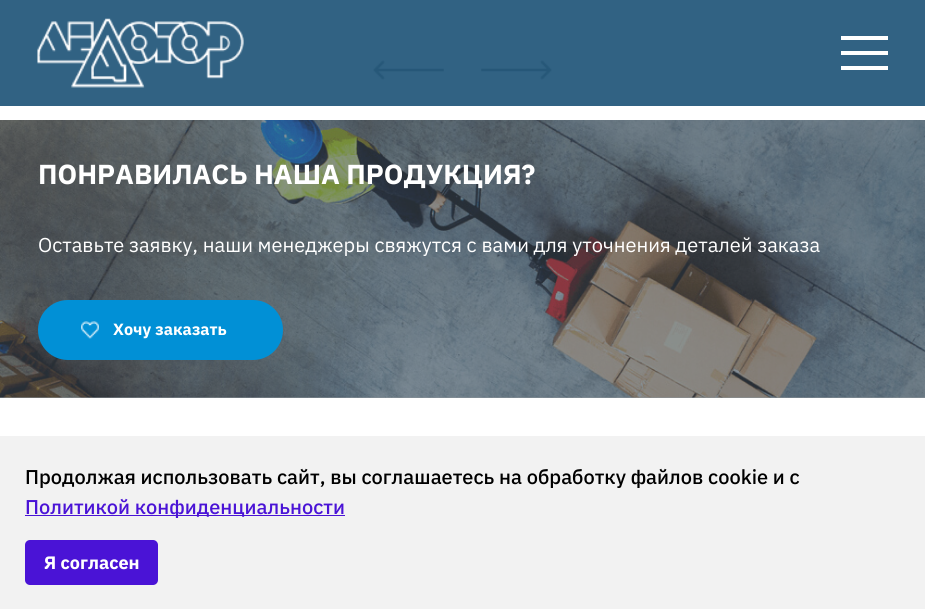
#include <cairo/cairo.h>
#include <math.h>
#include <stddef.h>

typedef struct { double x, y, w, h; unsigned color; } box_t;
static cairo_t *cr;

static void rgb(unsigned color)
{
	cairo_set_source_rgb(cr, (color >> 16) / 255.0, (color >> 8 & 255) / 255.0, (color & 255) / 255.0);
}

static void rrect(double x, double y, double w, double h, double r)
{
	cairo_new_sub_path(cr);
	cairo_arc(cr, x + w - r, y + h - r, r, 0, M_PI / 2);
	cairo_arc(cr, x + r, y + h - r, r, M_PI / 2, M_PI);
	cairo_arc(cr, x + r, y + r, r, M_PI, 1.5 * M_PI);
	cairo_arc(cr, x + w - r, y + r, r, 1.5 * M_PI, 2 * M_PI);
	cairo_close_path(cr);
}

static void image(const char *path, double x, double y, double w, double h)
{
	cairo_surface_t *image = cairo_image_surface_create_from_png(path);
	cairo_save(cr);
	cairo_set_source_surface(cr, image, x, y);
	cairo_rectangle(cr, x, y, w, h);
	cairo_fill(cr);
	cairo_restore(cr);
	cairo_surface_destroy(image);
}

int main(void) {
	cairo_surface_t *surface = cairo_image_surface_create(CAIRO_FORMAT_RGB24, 925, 609);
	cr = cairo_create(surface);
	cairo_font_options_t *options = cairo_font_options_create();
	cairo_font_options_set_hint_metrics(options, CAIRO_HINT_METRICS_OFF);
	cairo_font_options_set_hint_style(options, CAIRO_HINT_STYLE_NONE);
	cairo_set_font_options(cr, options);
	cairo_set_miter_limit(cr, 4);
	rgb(0xffffff);
	cairo_paint(cr);
	rgb(0x316283);
	cairo_rectangle(cr, 0, 0, 925, 106);
	cairo_fill(cr);
	rgb(0x8c949b);
	cairo_rectangle(cr, 0, 397, 925, 1);
	cairo_fill(cr);
	image("img/1.png", 37, 18, 207, 70);
	{
		static const box_t items[] = {
			{841, 36, 47, 4, 0xffffff},
			{841, 51, 47, 4, 0xffffff},
			{841, 66, 47, 4, 0xffffff},
		};
		for (size_t i = 0; i < sizeof items / sizeof *items; i++) {
			rgb(items[i].color);
			cairo_rectangle(cr, items[i].x, items[i].y, items[i].w, items[i].h);
			cairo_fill(cr);
		}
	}
	image("img/2.png", 373, 60, 71, 20);
	image("img/3.png", 481, 60, 71, 20);
	image("img/4.png", 0, 120, 925, 278);
	rgb(0x0190d6);
	rrect(38, 300, 245, 60, 30);
	cairo_fill(cr);
	image("img/5.png", 81, 321, 18, 18);
	rgb(0xf2f2f2);
	cairo_rectangle(cr, 0, 436, 925, 173);
	cairo_fill(cr);
	rgb(0x4a13d6);
	cairo_rectangle(cr, 25, 515, 320, 1);
	cairo_fill(cr);
	rrect(25, 540, 133, 45, 5);
	cairo_fill(cr);
	cairo_select_font_face(cr, "IBM Plex Sans", CAIRO_FONT_SLANT_NORMAL, CAIRO_FONT_WEIGHT_BOLD);
	cairo_set_font_size(cr, 27.5);
	rgb(0xffffff);
	cairo_move_to(cr, 38, 184);
	cairo_show_text(cr, "ПОНРАВИЛАСЬ НАША ПРОДУКЦИЯ?");
	cairo_select_font_face(cr, "IBM Plex Sans", CAIRO_FONT_SLANT_NORMAL, CAIRO_FONT_WEIGHT_NORMAL);
	cairo_set_font_size(cr, 20);
	cairo_move_to(cr, 38, 252);
	cairo_show_text(cr, "Оставьте заявку, наши менеджеры свяжутся с вами для уточнения деталей заказа");
	cairo_select_font_face(cr, "IBM Plex Sans", CAIRO_FONT_SLANT_NORMAL, CAIRO_FONT_WEIGHT_BOLD);
	cairo_set_font_size(cr, 16.25);
	cairo_move_to(cr, 113, 335);
	cairo_show_text(cr, "Хочу заказать");
	cairo_select_font_face(cr, "IBM Plex Sans Medium", CAIRO_FONT_SLANT_NORMAL, CAIRO_FONT_WEIGHT_NORMAL);
	cairo_set_font_size(cr, 20);
	rgb(0x000000);
	cairo_move_to(cr, 25, 484);
	cairo_show_text(cr, "Продолжая использовать сайт, вы соглашаетесь на обработку файлов cookie и с");
	rgb(0x4a13d6);
	cairo_move_to(cr, 25, 514);
	cairo_show_text(cr, "Политикой конфиденциальности");
	cairo_select_font_face(cr, "IBM Plex Sans", CAIRO_FONT_SLANT_NORMAL, CAIRO_FONT_WEIGHT_BOLD);
	cairo_set_font_size(cr, 18);
	rgb(0xffffff);
	cairo_move_to(cr, 44, 569);
	cairo_show_text(cr, "Я согласен");
	cairo_surface_write_to_png(surface, "page.png");
	cairo_font_options_destroy(options);
	cairo_destroy(cr);
	cairo_surface_destroy(surface);
	return 0;
}
